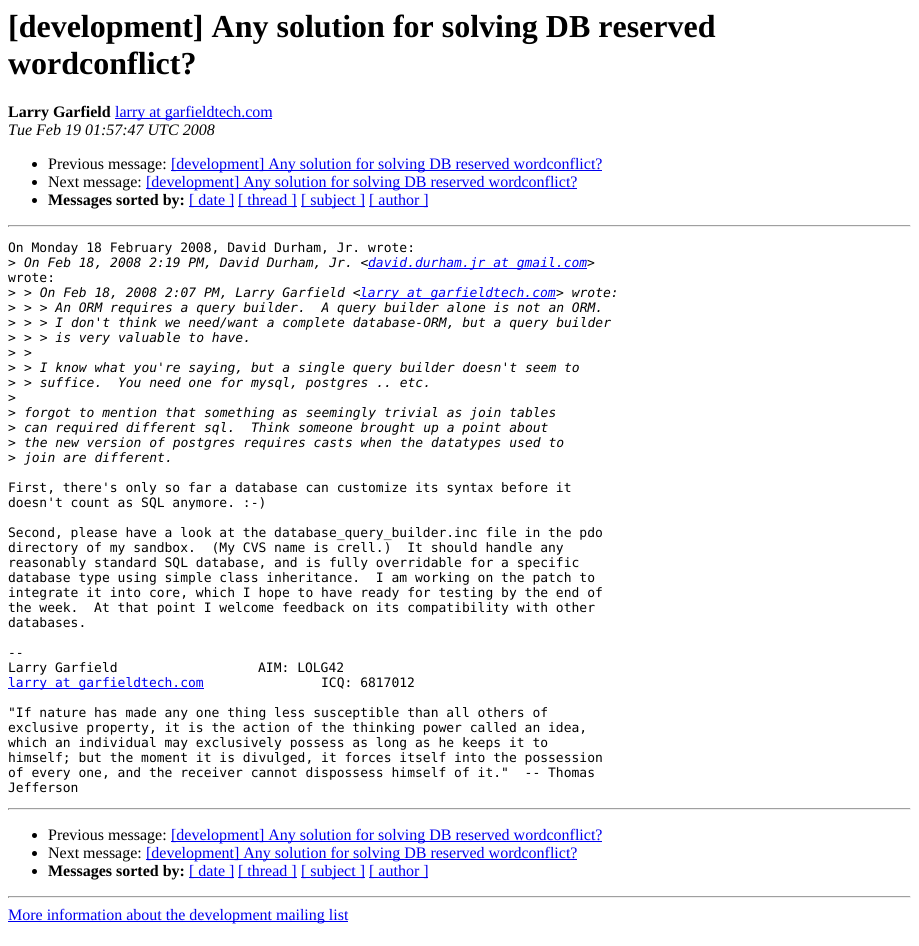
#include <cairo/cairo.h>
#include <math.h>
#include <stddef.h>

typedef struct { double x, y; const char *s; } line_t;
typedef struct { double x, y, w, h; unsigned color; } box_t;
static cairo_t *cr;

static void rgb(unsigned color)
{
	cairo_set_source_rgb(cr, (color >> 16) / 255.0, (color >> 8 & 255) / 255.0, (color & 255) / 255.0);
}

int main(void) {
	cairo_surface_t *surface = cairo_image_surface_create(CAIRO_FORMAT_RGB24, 919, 946);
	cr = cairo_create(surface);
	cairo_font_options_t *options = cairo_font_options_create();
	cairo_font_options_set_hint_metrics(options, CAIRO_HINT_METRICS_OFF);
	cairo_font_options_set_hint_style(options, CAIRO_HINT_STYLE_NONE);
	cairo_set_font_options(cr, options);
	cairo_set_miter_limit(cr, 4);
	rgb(0xffffff);
	cairo_paint(cr);
	rgb(0x0000ee);
	cairo_rectangle(cr, 115, 118, 157, 1);
	cairo_fill(cr);
	rgb(0x000000);
	cairo_arc(cr, 34.5, 164.5, 2.5, 0, 2 * M_PI);
	cairo_fill(cr);
	rgb(0x0000ee);
	cairo_rectangle(cr, 171, 170, 431, 1);
	cairo_fill(cr);
	rgb(0x000000);
	cairo_arc(cr, 34.5, 182.5, 2.5, 0, 2 * M_PI);
	cairo_fill(cr);
	rgb(0x0000ee);
	cairo_rectangle(cr, 146, 188, 431, 1);
	cairo_fill(cr);
	rgb(0x000000);
	cairo_arc(cr, 34.5, 200.5, 2.5, 0, 2 * M_PI);
	cairo_fill(cr);
	{
		static const box_t items[] = {
			{189, 206, 45, 1, 0x0000ee},
			{238, 206, 59, 1, 0x0000ee},
			{301, 206, 64, 1, 0x0000ee},
			{369, 206, 59, 1, 0x0000ee},
			{8, 225, 903, 1, 0x9f9f9f},
			{910, 225, 1, 2, 0xeeeeee},
			{8, 226, 903, 1, 0xeeeeee},
			{8, 225, 1, 2, 0x9f9f9f},
			{368, 268, 219, 1, 0x0000ee},
			{360, 298, 196, 1, 0x0000ee},
			{8, 688, 196, 1, 0x0000ee},
			{8, 808, 903, 1, 0x9f9f9f},
			{910, 808, 1, 2, 0xeeeeee},
			{8, 809, 903, 1, 0xeeeeee},
			{8, 808, 1, 2, 0x9f9f9f},
		};
		for (size_t i = 0; i < sizeof items / sizeof *items; i++) {
			rgb(items[i].color);
			cairo_rectangle(cr, items[i].x, items[i].y, items[i].w, items[i].h);
			cairo_fill(cr);
		}
	}
	rgb(0x000000);
	cairo_arc(cr, 34.5, 835.5, 2.5, 0, 2 * M_PI);
	cairo_fill(cr);
	rgb(0x0000ee);
	cairo_rectangle(cr, 171, 841, 431, 1);
	cairo_fill(cr);
	rgb(0x000000);
	cairo_arc(cr, 34.5, 853.5, 2.5, 0, 2 * M_PI);
	cairo_fill(cr);
	rgb(0x0000ee);
	cairo_rectangle(cr, 146, 859, 431, 1);
	cairo_fill(cr);
	rgb(0x000000);
	cairo_arc(cr, 34.5, 871.5, 2.5, 0, 2 * M_PI);
	cairo_fill(cr);
	{
		static const box_t items[] = {
			{189, 877, 45, 1, 0x0000ee},
			{238, 877, 59, 1, 0x0000ee},
			{301, 877, 64, 1, 0x0000ee},
			{369, 877, 59, 1, 0x0000ee},
			{8, 896, 903, 1, 0x9f9f9f},
			{910, 896, 1, 2, 0xeeeeee},
			{8, 897, 903, 1, 0xeeeeee},
			{8, 896, 1, 2, 0x9f9f9f},
			{8, 921, 340, 1, 0x0000ee},
		};
		for (size_t i = 0; i < sizeof items / sizeof *items; i++) {
			rgb(items[i].color);
			cairo_rectangle(cr, items[i].x, items[i].y, items[i].w, items[i].h);
			cairo_fill(cr);
		}
	}
	cairo_select_font_face(cr, "Liberation Serif", CAIRO_FONT_SLANT_NORMAL, CAIRO_FONT_WEIGHT_BOLD);
	cairo_set_font_size(cr, 32);
	rgb(0x000000);
	cairo_move_to(cr, 8, 37);
	cairo_show_text(cr, "[development] Any solution for solving DB reserved");
	cairo_move_to(cr, 8, 74);
	cairo_show_text(cr, "wordconflict?");
	cairo_set_font_size(cr, 16);
	cairo_move_to(cr, 8, 117);
	cairo_show_text(cr, "Larry Garfield");
	cairo_select_font_face(cr, "Liberation Serif", CAIRO_FONT_SLANT_NORMAL, CAIRO_FONT_WEIGHT_NORMAL);
	rgb(0x0000ee);
	cairo_move_to(cr, 115, 117);
	cairo_show_text(cr, "larry at garfieldtech.com");
	cairo_select_font_face(cr, "Liberation Serif", CAIRO_FONT_SLANT_ITALIC, CAIRO_FONT_WEIGHT_NORMAL);
	rgb(0x000000);
	cairo_move_to(cr, 8, 135);
	cairo_show_text(cr, "Tue Feb 19 01:57:47 UTC 2008");
	cairo_select_font_face(cr, "Liberation Serif", CAIRO_FONT_SLANT_NORMAL, CAIRO_FONT_WEIGHT_NORMAL);
	cairo_move_to(cr, 48, 169);
	cairo_show_text(cr, "Previous message:");
	rgb(0x0000ee);
	cairo_move_to(cr, 171, 169);
	cairo_show_text(cr, "[development] Any solution for solving DB reserved wordconflict?");
	rgb(0x000000);
	cairo_move_to(cr, 48, 187);
	cairo_show_text(cr, "Next message:");
	rgb(0x0000ee);
	cairo_move_to(cr, 146, 187);
	cairo_show_text(cr, "[development] Any solution for solving DB reserved wordconflict?");
	cairo_select_font_face(cr, "Liberation Serif", CAIRO_FONT_SLANT_NORMAL, CAIRO_FONT_WEIGHT_BOLD);
	rgb(0x000000);
	cairo_move_to(cr, 48, 205);
	cairo_show_text(cr, "Messages sorted by:");
	cairo_select_font_face(cr, "Liberation Serif", CAIRO_FONT_SLANT_NORMAL, CAIRO_FONT_WEIGHT_NORMAL);
	rgb(0x0000ee);
	{
		static const line_t items[] = {
			{189, 205, "[ date ]"},
			{238, 205, "[ thread ]"},
			{301, 205, "[ subject ]"},
			{369, 205, "[ author ]"},
		};
		for (size_t i = 0; i < sizeof items / sizeof *items; i++) {
			cairo_move_to(cr, items[i].x, items[i].y);
			cairo_show_text(cr, items[i].s);
		}
	}
	cairo_select_font_face(cr, "DejaVu Sans Mono", CAIRO_FONT_SLANT_NORMAL, CAIRO_FONT_WEIGHT_NORMAL);
	cairo_set_font_size(cr, 13);
	rgb(0x000000);
	cairo_move_to(cr, 8, 252);
	cairo_show_text(cr, "On Monday 18 February 2008, David Durham, Jr. wrote:");
	cairo_move_to(cr, 8, 267);
	cairo_show_text(cr, ">");
	cairo_select_font_face(cr, "DejaVu Sans Mono", CAIRO_FONT_SLANT_ITALIC, CAIRO_FONT_WEIGHT_NORMAL);
	cairo_move_to(cr, 24, 267);
	cairo_show_text(cr, "On Feb 18, 2008 2:19 PM, David Durham, Jr. <");
	rgb(0x0000ee);
	cairo_move_to(cr, 368, 267);
	cairo_show_text(cr, "david.durham.jr at gmail.com");
	rgb(0x000000);
	cairo_move_to(cr, 587, 267);
	cairo_show_text(cr, ">");
	cairo_select_font_face(cr, "DejaVu Sans Mono", CAIRO_FONT_SLANT_NORMAL, CAIRO_FONT_WEIGHT_NORMAL);
	cairo_move_to(cr, 8, 282);
	cairo_show_text(cr, "wrote:");
	cairo_move_to(cr, 8, 297);
	cairo_show_text(cr, ">");
	cairo_select_font_face(cr, "DejaVu Sans Mono", CAIRO_FONT_SLANT_ITALIC, CAIRO_FONT_WEIGHT_NORMAL);
	cairo_move_to(cr, 24, 297);
	cairo_show_text(cr, "> On Feb 18, 2008 2:07 PM, Larry Garfield <");
	rgb(0x0000ee);
	cairo_move_to(cr, 360, 297);
	cairo_show_text(cr, "larry at garfieldtech.com");
	rgb(0x000000);
	cairo_move_to(cr, 556, 297);
	cairo_show_text(cr, "> wrote:");
	cairo_select_font_face(cr, "DejaVu Sans Mono", CAIRO_FONT_SLANT_NORMAL, CAIRO_FONT_WEIGHT_NORMAL);
	cairo_move_to(cr, 8, 312);
	cairo_show_text(cr, ">");
	cairo_select_font_face(cr, "DejaVu Sans Mono", CAIRO_FONT_SLANT_ITALIC, CAIRO_FONT_WEIGHT_NORMAL);
	cairo_move_to(cr, 24, 312);
	cairo_show_text(cr, "> > An ORM requires a query builder.  A query builder alone is not an ORM.");
	cairo_select_font_face(cr, "DejaVu Sans Mono", CAIRO_FONT_SLANT_NORMAL, CAIRO_FONT_WEIGHT_NORMAL);
	cairo_move_to(cr, 8, 327);
	cairo_show_text(cr, ">");
	cairo_select_font_face(cr, "DejaVu Sans Mono", CAIRO_FONT_SLANT_ITALIC, CAIRO_FONT_WEIGHT_NORMAL);
	cairo_move_to(cr, 24, 327);
	cairo_show_text(cr, "> > I don't think we need/want a complete database-ORM, but a query builder");
	cairo_select_font_face(cr, "DejaVu Sans Mono", CAIRO_FONT_SLANT_NORMAL, CAIRO_FONT_WEIGHT_NORMAL);
	cairo_move_to(cr, 8, 342);
	cairo_show_text(cr, ">");
	cairo_select_font_face(cr, "DejaVu Sans Mono", CAIRO_FONT_SLANT_ITALIC, CAIRO_FONT_WEIGHT_NORMAL);
	cairo_move_to(cr, 24, 342);
	cairo_show_text(cr, "> > is very valuable to have.");
	cairo_select_font_face(cr, "DejaVu Sans Mono", CAIRO_FONT_SLANT_NORMAL, CAIRO_FONT_WEIGHT_NORMAL);
	cairo_move_to(cr, 8, 357);
	cairo_show_text(cr, ">");
	cairo_select_font_face(cr, "DejaVu Sans Mono", CAIRO_FONT_SLANT_ITALIC, CAIRO_FONT_WEIGHT_NORMAL);
	cairo_move_to(cr, 24, 357);
	cairo_show_text(cr, ">");
	cairo_select_font_face(cr, "DejaVu Sans Mono", CAIRO_FONT_SLANT_NORMAL, CAIRO_FONT_WEIGHT_NORMAL);
	cairo_move_to(cr, 8, 372);
	cairo_show_text(cr, ">");
	cairo_select_font_face(cr, "DejaVu Sans Mono", CAIRO_FONT_SLANT_ITALIC, CAIRO_FONT_WEIGHT_NORMAL);
	cairo_move_to(cr, 24, 372);
	cairo_show_text(cr, "> I know what you're saying, but a single query builder doesn't seem to");
	cairo_select_font_face(cr, "DejaVu Sans Mono", CAIRO_FONT_SLANT_NORMAL, CAIRO_FONT_WEIGHT_NORMAL);
	cairo_move_to(cr, 8, 387);
	cairo_show_text(cr, ">");
	cairo_select_font_face(cr, "DejaVu Sans Mono", CAIRO_FONT_SLANT_ITALIC, CAIRO_FONT_WEIGHT_NORMAL);
	cairo_move_to(cr, 24, 387);
	cairo_show_text(cr, "> suffice.  You need one for mysql, postgres .. etc.");
	cairo_select_font_face(cr, "DejaVu Sans Mono", CAIRO_FONT_SLANT_NORMAL, CAIRO_FONT_WEIGHT_NORMAL);
	cairo_move_to(cr, 8, 402);
	cairo_show_text(cr, ">");
	cairo_move_to(cr, 8, 417);
	cairo_show_text(cr, ">");
	cairo_select_font_face(cr, "DejaVu Sans Mono", CAIRO_FONT_SLANT_ITALIC, CAIRO_FONT_WEIGHT_NORMAL);
	cairo_move_to(cr, 24, 417);
	cairo_show_text(cr, "forgot to mention that something as seemingly trivial as join tables");
	cairo_select_font_face(cr, "DejaVu Sans Mono", CAIRO_FONT_SLANT_NORMAL, CAIRO_FONT_WEIGHT_NORMAL);
	cairo_move_to(cr, 8, 432);
	cairo_show_text(cr, ">");
	cairo_select_font_face(cr, "DejaVu Sans Mono", CAIRO_FONT_SLANT_ITALIC, CAIRO_FONT_WEIGHT_NORMAL);
	cairo_move_to(cr, 24, 432);
	cairo_show_text(cr, "can required different sql.  Think someone brought up a point about");
	cairo_select_font_face(cr, "DejaVu Sans Mono", CAIRO_FONT_SLANT_NORMAL, CAIRO_FONT_WEIGHT_NORMAL);
	cairo_move_to(cr, 8, 447);
	cairo_show_text(cr, ">");
	cairo_select_font_face(cr, "DejaVu Sans Mono", CAIRO_FONT_SLANT_ITALIC, CAIRO_FONT_WEIGHT_NORMAL);
	cairo_move_to(cr, 24, 447);
	cairo_show_text(cr, "the new version of postgres requires casts when the datatypes used to");
	cairo_select_font_face(cr, "DejaVu Sans Mono", CAIRO_FONT_SLANT_NORMAL, CAIRO_FONT_WEIGHT_NORMAL);
	cairo_move_to(cr, 8, 462);
	cairo_show_text(cr, ">");
	cairo_select_font_face(cr, "DejaVu Sans Mono", CAIRO_FONT_SLANT_ITALIC, CAIRO_FONT_WEIGHT_NORMAL);
	cairo_move_to(cr, 24, 462);
	cairo_show_text(cr, "join are different.");
	cairo_select_font_face(cr, "DejaVu Sans Mono", CAIRO_FONT_SLANT_NORMAL, CAIRO_FONT_WEIGHT_NORMAL);
	{
		static const line_t items[] = {
			{8, 492, "First, there's only so far a database can customize its syntax before it"},
			{8, 507, "doesn't count as SQL anymore. :-)"},
			{8, 537, "Second, please have a look at the database_query_builder.inc file in the pdo"},
			{8, 552, "directory of my sandbox.  (My CVS name is crell.)  It should handle any"},
			{8, 567, "reasonably standard SQL database, and is fully overridable for a specific"},
			{8, 582, "database type using simple class inheritance.  I am working on the patch to"},
			{8, 597, "integrate it into core, which I hope to have ready for testing by the end of"},
			{8, 612, "the week.  At that point I welcome feedback on its compatibility with other"},
			{8, 627, "databases."},
			{8, 657, "--"},
			{8, 672, "Larry Garfield"},
			{258, 672, "AIM: LOLG42"},
		};
		for (size_t i = 0; i < sizeof items / sizeof *items; i++) {
			cairo_move_to(cr, items[i].x, items[i].y);
			cairo_show_text(cr, items[i].s);
		}
	}
	rgb(0x0000ee);
	cairo_move_to(cr, 8, 687);
	cairo_show_text(cr, "larry at garfieldtech.com");
	rgb(0x000000);
	{
		static const line_t items[] = {
			{321, 687, "ICQ: 6817012"},
			{8, 717, "\"If nature has made any one thing less susceptible than all others of"},
			{8, 732, "exclusive property, it is the action of the thinking power called an idea,"},
			{8, 747, "which an individual may exclusively possess as long as he keeps it to"},
			{8, 762, "himself; but the moment it is divulged, it forces itself into the possession"},
			{8, 777, "of every one, and the receiver cannot dispossess himself of it.\"  -- Thomas"},
			{8, 792, "Jefferson"},
		};
		for (size_t i = 0; i < sizeof items / sizeof *items; i++) {
			cairo_move_to(cr, items[i].x, items[i].y);
			cairo_show_text(cr, items[i].s);
		}
	}
	cairo_select_font_face(cr, "Liberation Serif", CAIRO_FONT_SLANT_NORMAL, CAIRO_FONT_WEIGHT_NORMAL);
	cairo_set_font_size(cr, 16);
	cairo_move_to(cr, 48, 840);
	cairo_show_text(cr, "Previous message:");
	rgb(0x0000ee);
	cairo_move_to(cr, 171, 840);
	cairo_show_text(cr, "[development] Any solution for solving DB reserved wordconflict?");
	rgb(0x000000);
	cairo_move_to(cr, 48, 858);
	cairo_show_text(cr, "Next message:");
	rgb(0x0000ee);
	cairo_move_to(cr, 146, 858);
	cairo_show_text(cr, "[development] Any solution for solving DB reserved wordconflict?");
	cairo_select_font_face(cr, "Liberation Serif", CAIRO_FONT_SLANT_NORMAL, CAIRO_FONT_WEIGHT_BOLD);
	rgb(0x000000);
	cairo_move_to(cr, 48, 876);
	cairo_show_text(cr, "Messages sorted by:");
	cairo_select_font_face(cr, "Liberation Serif", CAIRO_FONT_SLANT_NORMAL, CAIRO_FONT_WEIGHT_NORMAL);
	rgb(0x0000ee);
	{
		static const line_t items[] = {
			{189, 876, "[ date ]"},
			{238, 876, "[ thread ]"},
			{301, 876, "[ subject ]"},
			{369, 876, "[ author ]"},
			{8, 920, "More information about the development mailing list"},
		};
		for (size_t i = 0; i < sizeof items / sizeof *items; i++) {
			cairo_move_to(cr, items[i].x, items[i].y);
			cairo_show_text(cr, items[i].s);
		}
	}
	cairo_surface_write_to_png(surface, "page.png");
	cairo_font_options_destroy(options);
	cairo_destroy(cr);
	cairo_surface_destroy(surface);
	return 0;
}
